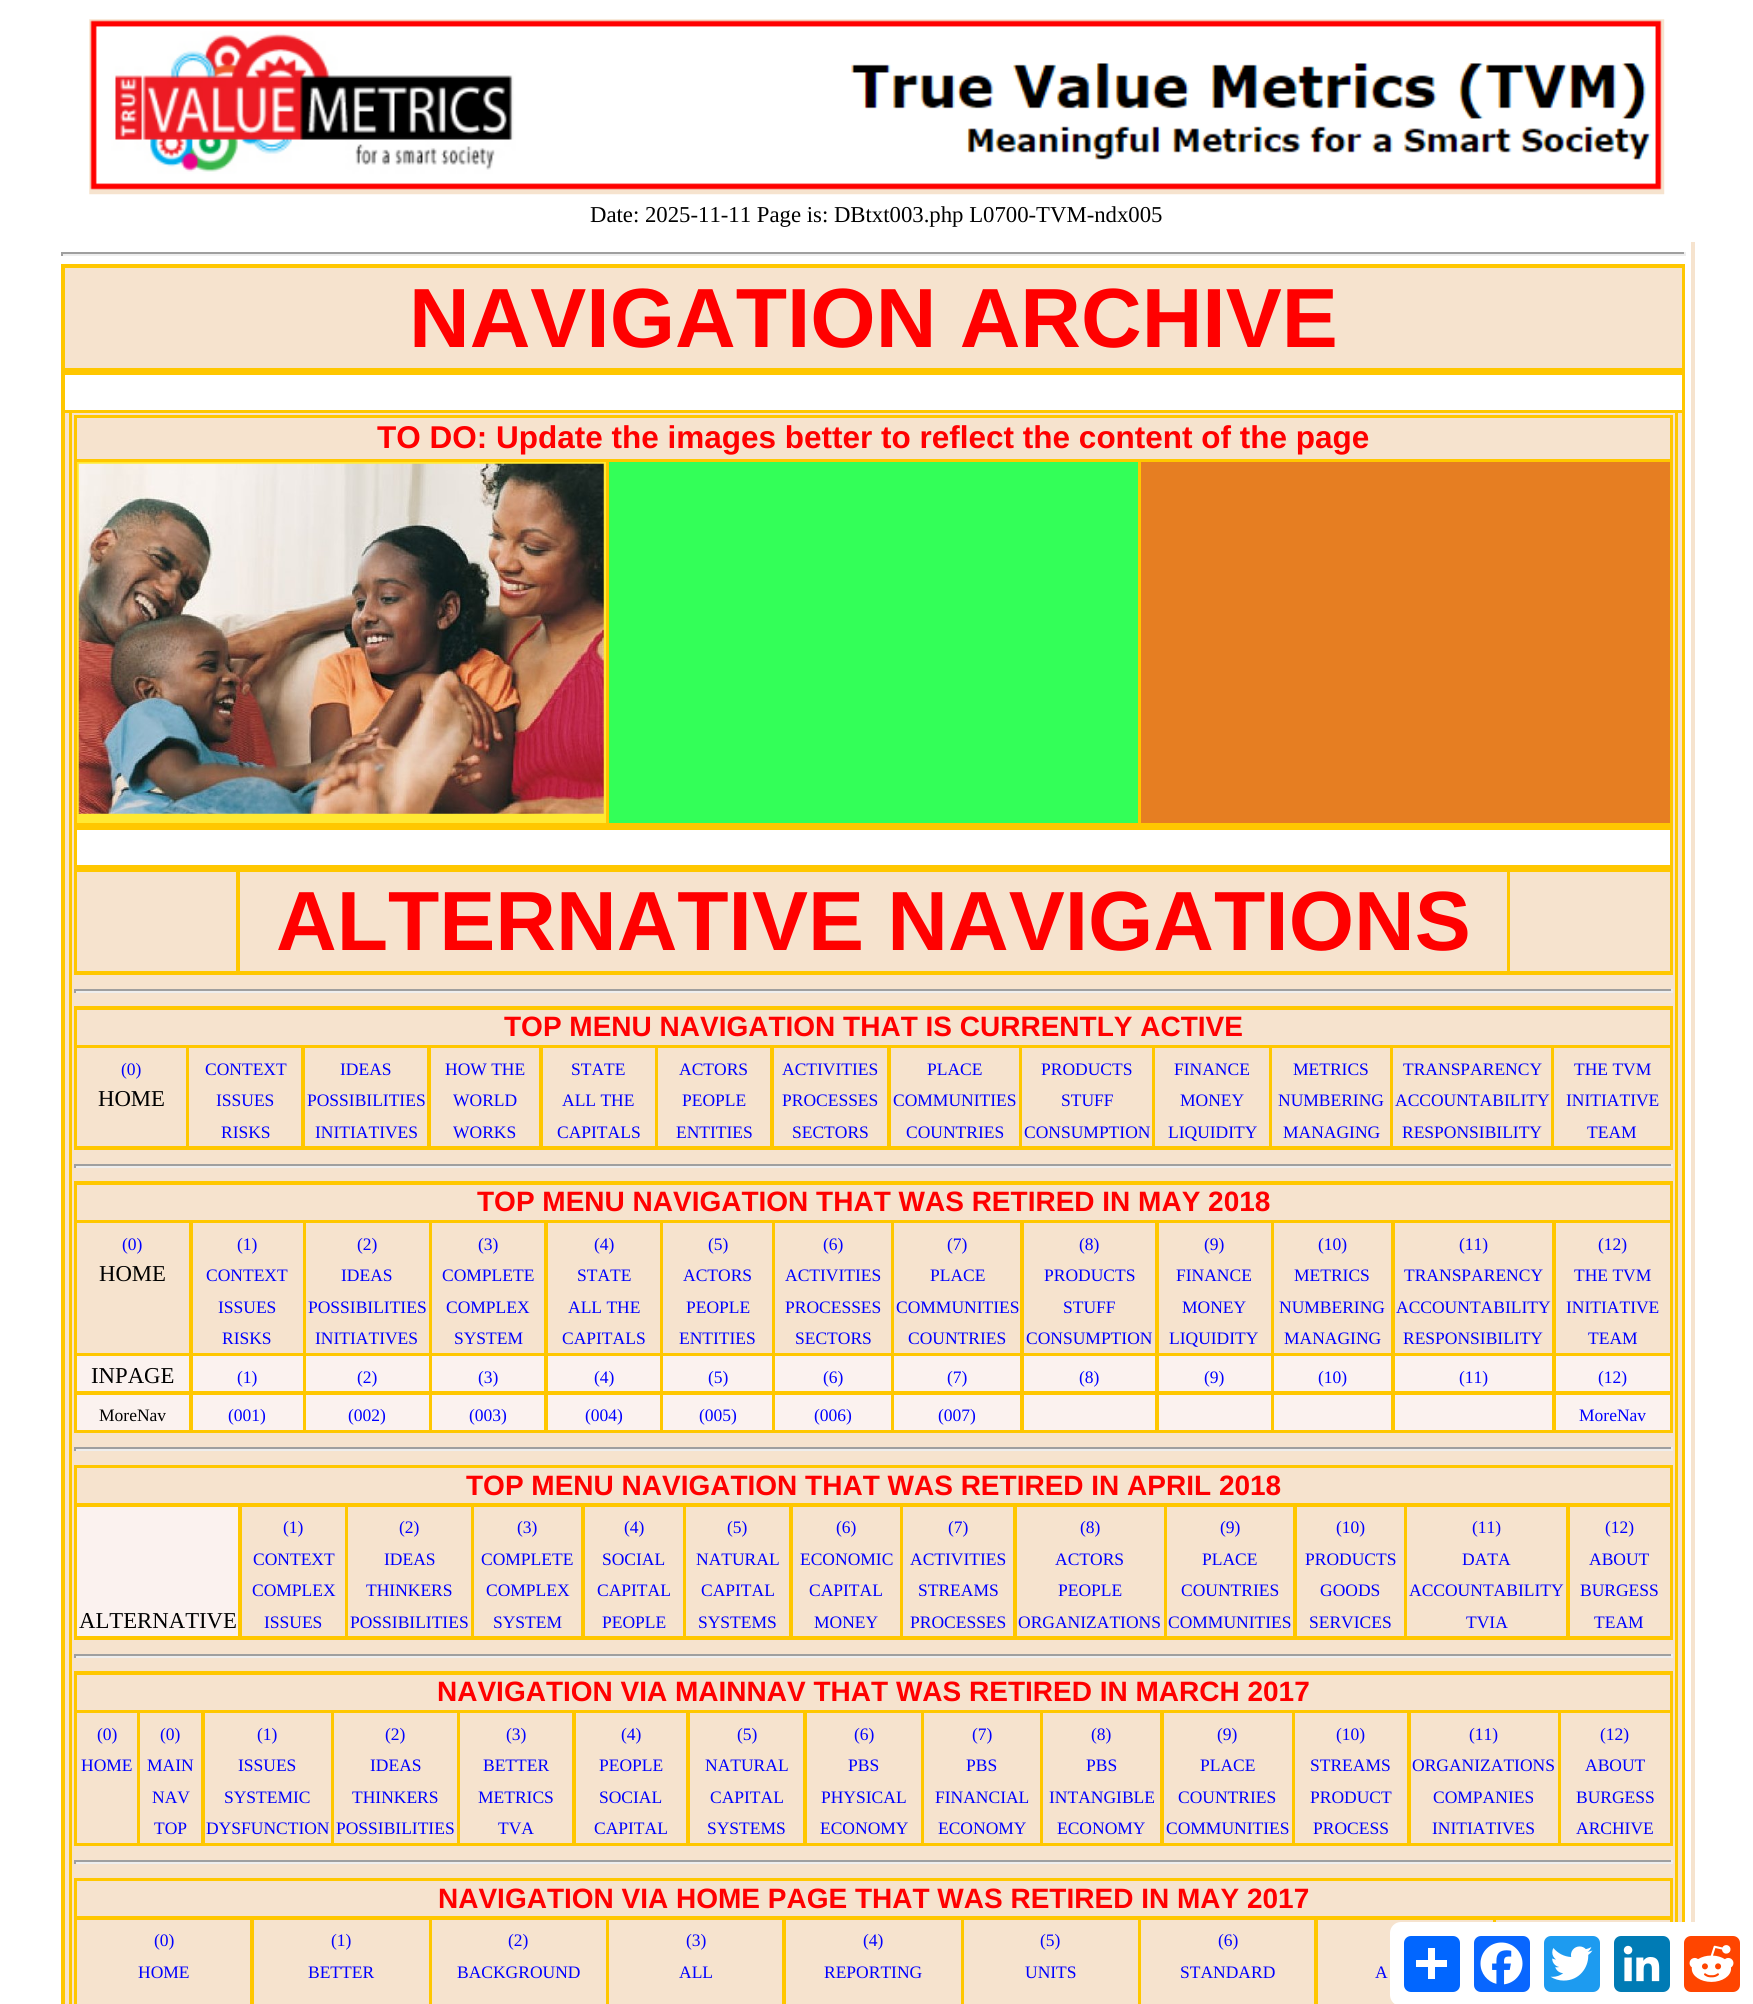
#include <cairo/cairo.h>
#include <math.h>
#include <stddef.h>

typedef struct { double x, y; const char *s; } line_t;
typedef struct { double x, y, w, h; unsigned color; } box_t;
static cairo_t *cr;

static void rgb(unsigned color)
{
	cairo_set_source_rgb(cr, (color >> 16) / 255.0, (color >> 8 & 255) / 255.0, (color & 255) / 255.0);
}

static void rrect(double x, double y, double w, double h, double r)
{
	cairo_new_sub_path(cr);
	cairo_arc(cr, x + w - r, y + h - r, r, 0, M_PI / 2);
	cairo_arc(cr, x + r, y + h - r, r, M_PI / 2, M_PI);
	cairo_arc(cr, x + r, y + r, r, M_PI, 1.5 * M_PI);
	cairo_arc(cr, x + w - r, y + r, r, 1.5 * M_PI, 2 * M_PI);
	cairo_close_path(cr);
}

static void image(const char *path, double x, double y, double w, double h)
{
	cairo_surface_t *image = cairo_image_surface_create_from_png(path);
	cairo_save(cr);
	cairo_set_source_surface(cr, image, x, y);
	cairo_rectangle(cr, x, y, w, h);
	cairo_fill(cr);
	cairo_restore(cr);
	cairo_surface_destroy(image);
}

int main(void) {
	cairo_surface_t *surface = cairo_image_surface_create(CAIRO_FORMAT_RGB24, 1753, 2004);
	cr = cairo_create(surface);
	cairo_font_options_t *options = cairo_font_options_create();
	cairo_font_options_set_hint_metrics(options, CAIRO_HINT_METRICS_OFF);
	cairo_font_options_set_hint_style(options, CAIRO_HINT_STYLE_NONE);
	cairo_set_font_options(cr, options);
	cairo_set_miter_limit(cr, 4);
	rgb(0xffffff);
	cairo_paint(cr);
	image("img/1.png", 89, 19, 1576, 176);
	{
		static const box_t items[] = {
			{61, 252, 1624, 2, 0x9f9f9f},
			{1684, 252, 2, 4, 0xeeeeee},
			{61, 254, 1624, 2, 0xeeeeee},
			{61, 252, 2, 4, 0x9f9f9f},
			{61, 264, 1624, 1740, 0xffc700},
			{65, 268, 1617, 100, 0xf6e3ce},
			{65, 375, 1617, 35, 0xffffff},
			{65, 413, 4, 1591, 0xf6e3ce},
			{72, 413, 1603, 1591, 0xf6e3ce},
			{74, 415, 1599, 560, 0xffc700},
			{77, 418, 1593, 41, 0xf6e3ce},
			{77, 462, 529, 361, 0xffe933},
		};
		for (size_t i = 0; i < sizeof items / sizeof *items; i++) {
			rgb(items[i].color);
			cairo_rectangle(cr, items[i].x, items[i].y, items[i].w, items[i].h);
			cairo_fill(cr);
		}
	}
	image("img/2.png", 78, 463, 526, 351);
	{
		static const box_t items[] = {
			{609, 462, 529, 361, 0x33ff58},
			{1141, 462, 529, 361, 0xe67e22},
			{77, 830, 1593, 35, 0xffffff},
			{77, 872, 159, 99, 0xf6e3ce},
			{240, 872, 1267, 99, 0xf6e3ce},
			{1510, 872, 160, 99, 0xf6e3ce},
			{74, 989, 1599, 2, 0x9f9f9f},
			{1671, 989, 2, 4, 0xeeeeee},
			{74, 991, 1599, 2, 0xeeeeee},
			{74, 989, 2, 4, 0x9f9f9f},
			{74, 1006, 1599, 144, 0xffc700},
			{77, 1010, 1593, 35, 0xf6e3ce},
			{77, 1048, 109, 98, 0xf6e3ce},
			{189, 1048, 112, 98, 0xf6e3ce},
			{305, 1048, 122, 98, 0xf6e3ce},
			{431, 1048, 108, 98, 0xf6e3ce},
			{543, 1048, 112, 98, 0xf6e3ce},
			{658, 1048, 112, 98, 0xf6e3ce},
			{774, 1048, 113, 98, 0xf6e3ce},
			{891, 1048, 128, 98, 0xf6e3ce},
			{1022, 1048, 130, 98, 0xf6e3ce},
			{1155, 1048, 114, 98, 0xf6e3ce},
			{1272, 1048, 118, 98, 0xf6e3ce},
			{1393, 1048, 158, 98, 0xf6e3ce},
			{1554, 1048, 116, 98, 0xf6e3ce},
			{74, 1164, 1599, 2, 0x9f9f9f},
			{1671, 1164, 2, 4, 0xeeeeee},
			{74, 1166, 1599, 2, 0xeeeeee},
			{74, 1164, 2, 4, 0x9f9f9f},
			{74, 1181, 1599, 252, 0xffc700},
			{77, 1185, 1593, 35, 0xf6e3ce},
			{77, 1223, 112, 130, 0xf6e3ce},
			{193, 1223, 110, 130, 0xf6e3ce},
			{306, 1223, 123, 130, 0xf6e3ce},
			{432, 1223, 112, 130, 0xf6e3ce},
			{548, 1223, 112, 130, 0xf6e3ce},
			{663, 1223, 109, 130, 0xf6e3ce},
			{775, 1223, 116, 130, 0xf6e3ce},
			{894, 1223, 126, 130, 0xf6e3ce},
			{1024, 1223, 131, 130, 0xf6e3ce},
			{1159, 1223, 112, 130, 0xf6e3ce},
			{1274, 1223, 117, 130, 0xf6e3ce},
			{1395, 1223, 157, 130, 0xf6e3ce},
			{1556, 1223, 114, 130, 0xf6e3ce},
			{77, 1356, 112, 35, 0xfbf2ef},
			{193, 1356, 110, 35, 0xfbf2ef},
			{306, 1356, 123, 35, 0xfbf2ef},
			{432, 1356, 112, 35, 0xfbf2ef},
			{548, 1356, 112, 35, 0xfbf2ef},
			{663, 1356, 109, 35, 0xfbf2ef},
			{775, 1356, 116, 35, 0xfbf2ef},
			{894, 1356, 126, 35, 0xfbf2ef},
			{1024, 1356, 131, 35, 0xfbf2ef},
			{1159, 1356, 112, 35, 0xfbf2ef},
			{1274, 1356, 117, 35, 0xfbf2ef},
			{1395, 1356, 157, 35, 0xfbf2ef},
			{1556, 1356, 114, 35, 0xfbf2ef},
			{77, 1395, 112, 35, 0xfbf2ef},
			{193, 1395, 110, 35, 0xfbf2ef},
			{306, 1395, 123, 35, 0xfbf2ef},
			{432, 1395, 112, 35, 0xfbf2ef},
			{548, 1395, 112, 35, 0xfbf2ef},
			{663, 1395, 109, 35, 0xfbf2ef},
			{775, 1395, 116, 35, 0xfbf2ef},
			{894, 1395, 126, 35, 0xfbf2ef},
			{1024, 1395, 131, 35, 0xfbf2ef},
			{1159, 1395, 112, 35, 0xfbf2ef},
			{1274, 1395, 117, 35, 0xfbf2ef},
			{1395, 1395, 157, 35, 0xfbf2ef},
			{1556, 1395, 114, 35, 0xfbf2ef},
			{74, 1447, 1599, 2, 0x9f9f9f},
			{1671, 1447, 2, 4, 0xeeeeee},
			{74, 1449, 1599, 2, 0xeeeeee},
			{74, 1447, 2, 4, 0x9f9f9f},
			{74, 1465, 1599, 175, 0xffc700},
			{77, 1468, 1593, 35, 0xf6e3ce},
			{77, 1507, 161, 129, 0xfbf2ef},
			{242, 1507, 103, 129, 0xf6e3ce},
			{348, 1507, 123, 129, 0xf6e3ce},
			{474, 1507, 107, 129, 0xf6e3ce},
			{585, 1507, 98, 129, 0xf6e3ce},
			{686, 1507, 103, 129, 0xf6e3ce},
			{793, 1507, 107, 129, 0xf6e3ce},
			{903, 1507, 110, 129, 0xf6e3ce},
			{1017, 1507, 147, 129, 0xf6e3ce},
			{1167, 1507, 126, 129, 0xf6e3ce},
			{1297, 1507, 107, 129, 0xf6e3ce},
			{1407, 1507, 159, 129, 0xf6e3ce},
			{1570, 1507, 100, 129, 0xf6e3ce},
			{74, 1654, 1599, 2, 0x9f9f9f},
			{1671, 1654, 2, 4, 0xeeeeee},
			{74, 1656, 1599, 2, 0xeeeeee},
			{74, 1654, 2, 4, 0x9f9f9f},
			{74, 1671, 1599, 175, 0xffc700},
			{77, 1675, 1593, 35, 0xf6e3ce},
			{77, 1713, 60, 130, 0xf6e3ce},
			{140, 1713, 61, 130, 0xf6e3ce},
			{205, 1713, 126, 130, 0xf6e3ce},
			{334, 1713, 123, 130, 0xf6e3ce},
			{460, 1713, 112, 130, 0xf6e3ce},
			{576, 1713, 110, 130, 0xf6e3ce},
			{690, 1713, 113, 130, 0xf6e3ce},
			{807, 1713, 114, 130, 0xf6e3ce},
			{924, 1713, 116, 130, 0xf6e3ce},
			{1043, 1713, 117, 130, 0xf6e3ce},
			{1164, 1713, 128, 130, 0xf6e3ce},
			{1295, 1713, 112, 130, 0xf6e3ce},
			{1411, 1713, 147, 130, 0xf6e3ce},
			{1561, 1713, 109, 130, 0xf6e3ce},
			{74, 1860, 1599, 2, 0x9f9f9f},
			{1671, 1860, 2, 4, 0xeeeeee},
			{74, 1862, 1599, 2, 0xeeeeee},
			{74, 1860, 2, 4, 0x9f9f9f},
			{74, 1878, 1599, 126, 0xffc700},
			{77, 1881, 1593, 35, 0xf6e3ce},
			{1496, 1920, 174, 2, 0xf6e3ce},
			{77, 1920, 173, 84, 0xf6e3ce},
			{254, 1920, 175, 84, 0xf6e3ce},
			{432, 1920, 174, 84, 0xf6e3ce},
			{609, 1920, 173, 84, 0xf6e3ce},
			{786, 1920, 175, 84, 0xf6e3ce},
			{964, 1920, 174, 84, 0xf6e3ce},
			{1141, 1920, 173, 84, 0xf6e3ce},
			{1318, 1920, 175, 84, 0xf6e3ce},
			{1678, 413, 4, 1509, 0xf6e3ce},
			{1691, 242, 4, 1680, 0xf6e3ce},
		};
		for (size_t i = 0; i < sizeof items / sizeof *items; i++) {
			rgb(items[i].color);
			cairo_rectangle(cr, items[i].x, items[i].y, items[i].w, items[i].h);
			cairo_fill(cr);
		}
	}
	rgb(0xffffff);
	rrect(1390, 1922, 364, 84, 11);
	cairo_fill(cr);
	rgb(0x0166ff);
	rrect(1404, 1936, 56, 56, 7);
	cairo_fill(cr);
	rgb(0xffffff);
	cairo_rectangle(cr, 1428, 1948, 7, 31);
	cairo_fill(cr);
	cairo_rectangle(cr, 1416, 1960, 31, 7);
	cairo_fill(cr);
	rgb(0x0866ff);
	rrect(1474, 1936, 56, 56, 7);
	cairo_fill(cr);
	image("img/3.png", 1480, 1942, 43, 43);
	rgb(0x1d9bf0);
	rrect(1544, 1936, 56, 56, 7);
	cairo_fill(cr);
	image("img/4.png", 1550, 1946, 43, 35);
	rgb(0x007bb5);
	rrect(1614, 1936, 56, 56, 7);
	cairo_fill(cr);
	image("img/5.png", 1623, 1945, 37, 37);
	rgb(0xff4500);
	rrect(1684, 1936, 56, 56, 7);
	cairo_fill(cr);
	image("img/6.png", 1689, 1945, 45, 37);
	cairo_select_font_face(cr, "Liberation Serif", CAIRO_FONT_SLANT_NORMAL, CAIRO_FONT_WEIGHT_NORMAL);
	cairo_set_font_size(cr, 22.75);
	rgb(0x000000);
	cairo_move_to(cr, 590, 222);
	cairo_show_text(cr, "Date: 2025-11-11 Page is: DBtxt003.php L0700-TVM-ndx005");
	cairo_select_font_face(cr, "Liberation Sans", CAIRO_FONT_SLANT_NORMAL, CAIRO_FONT_WEIGHT_BOLD);
	cairo_set_font_size(cr, 84);
	rgb(0xff0000);
	cairo_move_to(cr, 409, 347);
	cairo_show_text(cr, "NAVIGATION ARCHIVE");
	cairo_set_font_size(cr, 31.5);
	cairo_move_to(cr, 377, 448);
	cairo_show_text(cr, "TO DO: Update the images better to reflect the content of the page");
	cairo_set_font_size(cr, 84);
	cairo_move_to(cr, 276, 950);
	cairo_show_text(cr, "ALTERNATIVE NAVIGATIONS");
	cairo_set_font_size(cr, 28);
	cairo_move_to(cr, 504, 1036);
	cairo_show_text(cr, "TOP MENU NAVIGATION THAT IS CURRENTLY ACTIVE");
	cairo_select_font_face(cr, "Liberation Serif", CAIRO_FONT_SLANT_NORMAL, CAIRO_FONT_WEIGHT_NORMAL);
	cairo_set_font_size(cr, 17.5);
	rgb(0x0000ff);
	cairo_move_to(cr, 121, 1075);
	cairo_show_text(cr, "(0)");
	cairo_set_font_size(cr, 22.75);
	rgb(0x000000);
	cairo_move_to(cr, 98, 1106);
	cairo_show_text(cr, "HOME");
	cairo_set_font_size(cr, 17.5);
	rgb(0x0000ff);
	{
		static const line_t items[] = {
			{205, 1075, "CONTEXT"},
			{216, 1106, "ISSUES"},
			{221, 1138, "RISKS"},
			{340, 1075, "IDEAS"},
			{307, 1106, "POSSIBILITIES"},
			{315, 1138, "INITIATIVES"},
			{445, 1075, "HOW THE"},
			{453, 1106, "WORLD"},
			{453, 1138, "WORKS"},
			{571, 1075, "STATE"},
			{562, 1106, "ALL THE"},
			{557, 1138, "CAPITALS"},
			{679, 1075, "ACTORS"},
			{682, 1106, "PEOPLE"},
			{676, 1138, "ENTITIES"},
			{782, 1075, "ACTIVITIES"},
			{782, 1106, "PROCESSES"},
			{792, 1138, "SECTORS"},
			{927, 1075, "PLACE"},
			{893, 1106, "COMMUNITIES"},
			{906, 1138, "COUNTRIES"},
			{1041, 1075, "PRODUCTS"},
			{1061, 1106, "STUFF"},
			{1024, 1138, "CONSUMPTION"},
			{1174, 1075, "FINANCE"},
			{1180, 1106, "MONEY"},
			{1168, 1138, "LIQUIDITY"},
			{1293, 1075, "METRICS"},
			{1278, 1106, "NUMBERING"},
			{1283, 1138, "MANAGING"},
			{1403, 1075, "TRANSPARENCY"},
			{1395, 1106, "ACCOUNTABILITY"},
			{1402, 1138, "RESPONSIBILITY"},
			{1574, 1075, "THE TVM"},
			{1566, 1106, "INITIATIVE"},
			{1587, 1138, "TEAM"},
		};
		for (size_t i = 0; i < sizeof items / sizeof *items; i++) {
			cairo_move_to(cr, items[i].x, items[i].y);
			cairo_show_text(cr, items[i].s);
		}
	}
	cairo_select_font_face(cr, "Liberation Sans", CAIRO_FONT_SLANT_NORMAL, CAIRO_FONT_WEIGHT_BOLD);
	cairo_set_font_size(cr, 28);
	rgb(0xff0000);
	cairo_move_to(cr, 477, 1211);
	cairo_show_text(cr, "TOP MENU NAVIGATION THAT WAS RETIRED IN MAY 2018");
	cairo_select_font_face(cr, "Liberation Serif", CAIRO_FONT_SLANT_NORMAL, CAIRO_FONT_WEIGHT_NORMAL);
	cairo_set_font_size(cr, 17.5);
	rgb(0x0000ff);
	cairo_move_to(cr, 122, 1250);
	cairo_show_text(cr, "(0)");
	cairo_set_font_size(cr, 22.75);
	rgb(0x000000);
	cairo_move_to(cr, 99, 1281);
	cairo_show_text(cr, "HOME");
	cairo_set_font_size(cr, 17.5);
	rgb(0x0000ff);
	{
		static const line_t items[] = {
			{237, 1250, "(1)"},
			{206, 1281, "CONTEXT"},
			{218, 1313, "ISSUES"},
			{222, 1344, "RISKS"},
			{357, 1250, "(2)"},
			{341, 1281, "IDEAS"},
			{308, 1313, "POSSIBILITIES"},
			{315, 1344, "INITIATIVES"},
			{478, 1250, "(3)"},
			{442, 1281, "COMPLETE"},
			{446, 1313, "COMPLEX"},
			{454, 1344, "SYSTEM"},
			{594, 1250, "(4)"},
			{577, 1281, "STATE"},
			{568, 1313, "ALL THE"},
			{562, 1344, "CAPITALS"},
			{708, 1250, "(5)"},
			{683, 1281, "ACTORS"},
			{686, 1313, "PEOPLE"},
			{679, 1344, "ENTITIES"},
			{823, 1250, "(6)"},
			{785, 1281, "ACTIVITIES"},
			{785, 1313, "PROCESSES"},
			{795, 1344, "SECTORS"},
			{947, 1250, "(7)"},
			{930, 1281, "PLACE"},
			{896, 1313, "COMMUNITIES"},
			{908, 1344, "COUNTRIES"},
			{1079, 1250, "(8)"},
			{1044, 1281, "PRODUCTS"},
			{1063, 1313, "STUFF"},
			{1026, 1344, "CONSUMPTION"},
			{1204, 1250, "(9)"},
			{1176, 1281, "FINANCE"},
			{1182, 1313, "MONEY"},
			{1169, 1344, "LIQUIDITY"},
			{1318, 1250, "(10)"},
			{1294, 1281, "METRICS"},
			{1279, 1313, "NUMBERING"},
			{1284, 1344, "MANAGING"},
			{1459, 1250, "(11)"},
			{1404, 1281, "TRANSPARENCY"},
			{1396, 1313, "ACCOUNTABILITY"},
			{1403, 1344, "RESPONSIBILITY"},
			{1598, 1250, "(12)"},
			{1574, 1281, "THE TVM"},
			{1566, 1313, "INITIATIVE"},
			{1588, 1344, "TEAM"},
		};
		for (size_t i = 0; i < sizeof items / sizeof *items; i++) {
			cairo_move_to(cr, items[i].x, items[i].y);
			cairo_show_text(cr, items[i].s);
		}
	}
	cairo_set_font_size(cr, 22.75);
	rgb(0x000000);
	cairo_move_to(cr, 91, 1383);
	cairo_show_text(cr, "INPAGE");
	cairo_set_font_size(cr, 17.5);
	rgb(0x0000ff);
	{
		static const line_t items[] = {
			{237, 1383, "(1)"},
			{357, 1383, "(2)"},
			{478, 1383, "(3)"},
			{594, 1383, "(4)"},
			{708, 1383, "(5)"},
			{823, 1383, "(6)"},
			{947, 1383, "(7)"},
			{1079, 1383, "(8)"},
			{1204, 1383, "(9)"},
			{1318, 1383, "(10)"},
			{1459, 1383, "(11)"},
			{1598, 1383, "(12)"},
		};
		for (size_t i = 0; i < sizeof items / sizeof *items; i++) {
			cairo_move_to(cr, items[i].x, items[i].y);
			cairo_show_text(cr, items[i].s);
		}
	}
	rgb(0x000000);
	cairo_move_to(cr, 99, 1421);
	cairo_show_text(cr, "MoreNav");
	rgb(0x0000ff);
	{
		static const line_t items[] = {
			{228, 1421, "(001)"},
			{348, 1421, "(002)"},
			{469, 1421, "(003)"},
			{585, 1421, "(004)"},
			{699, 1421, "(005)"},
			{814, 1421, "(006)"},
			{938, 1421, "(007)"},
			{1579, 1421, "MoreNav"},
		};
		for (size_t i = 0; i < sizeof items / sizeof *items; i++) {
			cairo_move_to(cr, items[i].x, items[i].y);
			cairo_show_text(cr, items[i].s);
		}
	}
	cairo_select_font_face(cr, "Liberation Sans", CAIRO_FONT_SLANT_NORMAL, CAIRO_FONT_WEIGHT_BOLD);
	cairo_set_font_size(cr, 28);
	rgb(0xff0000);
	cairo_move_to(cr, 466, 1495);
	cairo_show_text(cr, "TOP MENU NAVIGATION THAT WAS RETIRED IN APRIL 2018");
	cairo_select_font_face(cr, "Liberation Serif", CAIRO_FONT_SLANT_NORMAL, CAIRO_FONT_WEIGHT_NORMAL);
	cairo_set_font_size(cr, 22.75);
	rgb(0x000000);
	cairo_move_to(cr, 79, 1628);
	cairo_show_text(cr, "ALTERNATIVE");
	cairo_set_font_size(cr, 17.5);
	rgb(0x0000ff);
	{
		static const line_t items[] = {
			{283, 1533, "(1)"},
			{253, 1565, "CONTEXT"},
			{252, 1596, "COMPLEX"},
			{264, 1628, "ISSUES"},
			{399, 1533, "(2)"},
			{384, 1565, "IDEAS"},
			{366, 1596, "THINKERS"},
			{350, 1628, "POSSIBILITIES"},
			{517, 1533, "(3)"},
			{481, 1565, "COMPLETE"},
			{486, 1596, "COMPLEX"},
			{493, 1628, "SYSTEM"},
			{624, 1533, "(4)"},
			{602, 1565, "SOCIAL"},
			{597, 1596, "CAPITAL"},
			{602, 1628, "PEOPLE"},
			{727, 1533, "(5)"},
			{696, 1565, "NATURAL"},
			{701, 1596, "CAPITAL"},
			{698, 1628, "SYSTEMS"},
			{836, 1533, "(6)"},
			{800, 1565, "ECONOMIC"},
			{809, 1596, "CAPITAL"},
			{814, 1628, "MONEY"},
			{948, 1533, "(7)"},
			{910, 1565, "ACTIVITIES"},
			{918, 1596, "STREAMS"},
			{910, 1628, "PROCESSES"},
			{1080, 1533, "(8)"},
			{1055, 1565, "ACTORS"},
			{1058, 1596, "PEOPLE"},
			{1018, 1628, "ORGANIZATIONS"},
			{1220, 1533, "(9)"},
			{1202, 1565, "PLACE"},
			{1181, 1596, "COUNTRIES"},
			{1168, 1628, "COMMUNITIES"},
			{1336, 1533, "(10)"},
			{1305, 1565, "PRODUCTS"},
			{1320, 1596, "GOODS"},
			{1309, 1628, "SERVICES"},
			{1472, 1533, "(11)"},
			{1462, 1565, "DATA"},
			{1409, 1596, "ACCOUNTABILITY"},
			{1466, 1628, "TVIA"},
			{1605, 1533, "(12)"},
			{1589, 1565, "ABOUT"},
			{1580, 1596, "BURGESS"},
			{1594, 1628, "TEAM"},
		};
		for (size_t i = 0; i < sizeof items / sizeof *items; i++) {
			cairo_move_to(cr, items[i].x, items[i].y);
			cairo_show_text(cr, items[i].s);
		}
	}
	cairo_select_font_face(cr, "Liberation Sans", CAIRO_FONT_SLANT_NORMAL, CAIRO_FONT_WEIGHT_BOLD);
	cairo_set_font_size(cr, 28);
	rgb(0xff0000);
	cairo_move_to(cr, 437, 1701);
	cairo_show_text(cr, "NAVIGATION VIA MAINNAV THAT WAS RETIRED IN MARCH 2017");
	cairo_select_font_face(cr, "Liberation Serif", CAIRO_FONT_SLANT_NORMAL, CAIRO_FONT_WEIGHT_NORMAL);
	cairo_set_font_size(cr, 17.5);
	rgb(0x0000ff);
	{
		static const line_t items[] = {
			{97, 1740, "(0)"},
			{81, 1771, "HOME"},
			{160, 1740, "(0)"},
			{147, 1771, "MAIN"},
			{152, 1803, "NAV"},
			{154, 1834, "TOP"},
			{257, 1740, "(1)"},
			{238, 1771, "ISSUES"},
			{224, 1803, "SYSTEMIC"},
			{206, 1834, "DYSFUNCTION"},
			{385, 1740, "(2)"},
			{370, 1771, "IDEAS"},
			{352, 1803, "THINKERS"},
			{336, 1834, "POSSIBILITIES"},
			{506, 1740, "(3)"},
			{483, 1771, "BETTER"},
			{478, 1803, "METRICS"},
			{498, 1834, "TVA"},
			{621, 1740, "(4)"},
			{599, 1771, "PEOPLE"},
			{599, 1803, "SOCIAL"},
			{594, 1834, "CAPITAL"},
			{737, 1740, "(5)"},
			{705, 1771, "NATURAL"},
			{710, 1803, "CAPITAL"},
			{707, 1834, "SYSTEMS"},
			{854, 1740, "(6)"},
			{848, 1771, "PBS"},
			{821, 1803, "PHYSICAL"},
			{820, 1834, "ECONOMY"},
			{972, 1740, "(7)"},
			{966, 1771, "PBS"},
			{935, 1803, "FINANCIAL"},
			{938, 1834, "ECONOMY"},
			{1091, 1740, "(8)"},
			{1086, 1771, "PBS"},
			{1049, 1803, "INTANGIBLE"},
			{1057, 1834, "ECONOMY"},
			{1217, 1740, "(9)"},
			{1200, 1771, "PLACE"},
			{1178, 1803, "COUNTRIES"},
			{1166, 1834, "COMMUNITIES"},
			{1336, 1740, "(10)"},
			{1310, 1771, "STREAMS"},
			{1310, 1803, "PRODUCT"},
			{1313, 1834, "PROCESS"},
			{1469, 1740, "(11)"},
			{1412, 1771, "ORGANIZATIONS"},
			{1433, 1803, "COMPANIES"},
			{1432, 1834, "INITIATIVES"},
			{1600, 1740, "(12)"},
			{1585, 1771, "ABOUT"},
			{1576, 1803, "BURGESS"},
			{1576, 1834, "ARCHIVE"},
		};
		for (size_t i = 0; i < sizeof items / sizeof *items; i++) {
			cairo_move_to(cr, items[i].x, items[i].y);
			cairo_show_text(cr, items[i].s);
		}
	}
	cairo_select_font_face(cr, "Liberation Sans", CAIRO_FONT_SLANT_NORMAL, CAIRO_FONT_WEIGHT_BOLD);
	cairo_set_font_size(cr, 28);
	rgb(0xff0000);
	cairo_move_to(cr, 438, 1908);
	cairo_show_text(cr, "NAVIGATION VIA HOME PAGE THAT WAS RETIRED IN MAY 2017");
	cairo_select_font_face(cr, "Liberation Serif", CAIRO_FONT_SLANT_NORMAL, CAIRO_FONT_WEIGHT_NORMAL);
	cairo_set_font_size(cr, 17.5);
	rgb(0x0000ff);
	{
		static const line_t items[] = {
			{154, 1946, "(0)"},
			{138, 1978, "HOME"},
			{331, 1946, "(1)"},
			{308, 1978, "BETTER"},
			{508, 1946, "(2)"},
			{457, 1978, "BACKGROUND"},
			{686, 1946, "(3)"},
			{679, 1978, "ALL"},
			{863, 1946, "(4)"},
			{824, 1978, "REPORTING"},
			{1040, 1946, "(5)"},
			{1025, 1978, "UNITS"},
			{1218, 1946, "(6)"},
			{1180, 1978, "STANDARD"},
			{1375, 1978, "A"},
		};
		for (size_t i = 0; i < sizeof items / sizeof *items; i++) {
			cairo_move_to(cr, items[i].x, items[i].y);
			cairo_show_text(cr, items[i].s);
		}
	}
	cairo_surface_write_to_png(surface, "page.png");
	cairo_font_options_destroy(options);
	cairo_destroy(cr);
	cairo_surface_destroy(surface);
	return 0;
}
